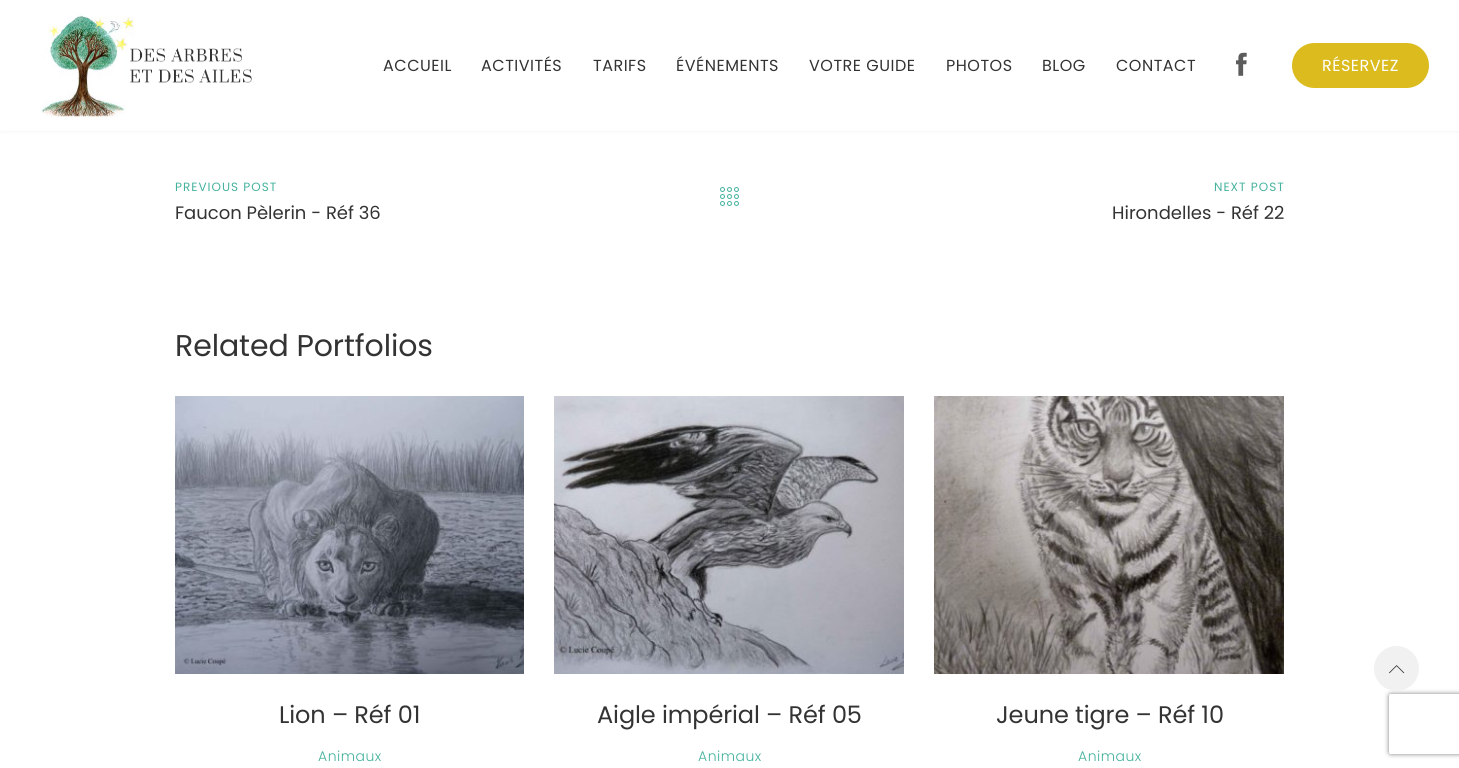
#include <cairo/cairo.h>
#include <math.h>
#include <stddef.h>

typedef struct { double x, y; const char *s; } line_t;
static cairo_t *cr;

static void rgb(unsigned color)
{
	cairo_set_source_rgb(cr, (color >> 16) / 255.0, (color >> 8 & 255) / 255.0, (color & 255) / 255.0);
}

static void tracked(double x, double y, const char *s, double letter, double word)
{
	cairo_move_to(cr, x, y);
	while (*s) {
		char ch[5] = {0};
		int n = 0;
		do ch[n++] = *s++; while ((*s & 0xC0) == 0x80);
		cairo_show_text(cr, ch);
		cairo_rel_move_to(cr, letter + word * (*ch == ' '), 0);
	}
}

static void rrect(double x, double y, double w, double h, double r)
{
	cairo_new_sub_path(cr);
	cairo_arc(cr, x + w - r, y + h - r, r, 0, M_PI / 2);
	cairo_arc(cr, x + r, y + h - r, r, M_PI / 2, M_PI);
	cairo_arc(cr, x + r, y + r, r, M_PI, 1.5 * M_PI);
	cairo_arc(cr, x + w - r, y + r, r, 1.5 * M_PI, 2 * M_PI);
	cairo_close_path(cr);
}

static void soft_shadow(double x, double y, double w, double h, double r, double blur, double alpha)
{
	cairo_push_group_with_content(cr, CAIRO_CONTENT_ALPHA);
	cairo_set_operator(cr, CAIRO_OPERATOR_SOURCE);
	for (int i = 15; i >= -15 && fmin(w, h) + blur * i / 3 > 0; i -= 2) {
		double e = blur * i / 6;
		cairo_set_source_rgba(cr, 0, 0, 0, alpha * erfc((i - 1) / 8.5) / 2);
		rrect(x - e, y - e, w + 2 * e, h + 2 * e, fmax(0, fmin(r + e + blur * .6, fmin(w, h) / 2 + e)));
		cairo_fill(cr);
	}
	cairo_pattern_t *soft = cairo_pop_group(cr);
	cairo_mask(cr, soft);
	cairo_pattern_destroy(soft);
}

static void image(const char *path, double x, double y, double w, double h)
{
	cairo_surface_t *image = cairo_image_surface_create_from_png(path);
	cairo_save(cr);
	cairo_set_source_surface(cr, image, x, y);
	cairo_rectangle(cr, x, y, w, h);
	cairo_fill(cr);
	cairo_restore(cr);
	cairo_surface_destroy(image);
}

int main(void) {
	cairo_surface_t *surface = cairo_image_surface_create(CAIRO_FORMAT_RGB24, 1459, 768);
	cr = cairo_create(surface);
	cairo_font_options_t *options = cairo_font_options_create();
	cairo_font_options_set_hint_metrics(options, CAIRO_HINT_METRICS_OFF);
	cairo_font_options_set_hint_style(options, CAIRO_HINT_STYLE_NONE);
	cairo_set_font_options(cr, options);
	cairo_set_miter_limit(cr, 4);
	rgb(0xffffff);
	cairo_paint(cr);
	rgb(0x000000);
	soft_shadow(0, 1, 1459, 131, 0, 1.5, 0.04);
	rgb(0xffffff);
	cairo_rectangle(cr, 0, 0, 1459, 131);
	cairo_fill(cr);
	image("img/1.png", 41, 13, 211, 105);
	image("img/2.png", 1236, 52, 11, 24);
	rgb(0xdbbb1e);
	rrect(1292, 43, 137, 45, 22.5);
	cairo_fill(cr);
	image("img/3.png", 720, 187, 19, 19);
	image("img/4.png", 175, 396, 349, 278);
	image("img/5.png", 554, 396, 350, 278);
	image("img/6.png", 934, 396, 350, 278);
	cairo_save(cr);
	cairo_set_fill_rule(cr, CAIRO_FILL_RULE_EVEN_ODD);
	cairo_new_path(cr);
	cairo_move_to(cr, 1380, 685);
	cairo_line_to(cr, 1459, 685);
	cairo_line_to(cr, 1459, 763);
	cairo_line_to(cr, 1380, 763);
	cairo_close_path(cr);
	cairo_move_to(cr, 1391, 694);
	cairo_line_to(cr, 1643, 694);
	cairo_curve_to(cr, 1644, 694, 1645, 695, 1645, 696);
	cairo_line_to(cr, 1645, 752);
	cairo_curve_to(cr, 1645, 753, 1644, 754, 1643, 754);
	cairo_line_to(cr, 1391, 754);
	cairo_curve_to(cr, 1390, 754, 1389, 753, 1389, 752);
	cairo_line_to(cr, 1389, 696);
	cairo_curve_to(cr, 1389, 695, 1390, 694, 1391, 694);
	cairo_close_path(cr);
	cairo_clip(cr);
	rgb(0x808080);
	soft_shadow(1389, 694, 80, 60, 2, 2.5, 1);
	cairo_restore(cr);
	rgb(0xf1f1f1);
	cairo_arc(cr, 1396.5, 668.5, 22.5, 0, 2 * M_PI);
	cairo_fill(cr);
	image("img/7.png", 1389, 665, 16, 9);
	cairo_select_font_face(cr, "Poppins", CAIRO_FONT_SLANT_NORMAL, CAIRO_FONT_WEIGHT_NORMAL);
	cairo_set_font_size(cr, 16);
	rgb(0x333333);
	{
		static const line_t items[] = {
			{383, 71, "ACCUEIL"},
			{481, 71, "ACTIVITÉS"},
			{593, 71, "TARIFS"},
			{676, 71, "ÉVÉNEMENTS"},
			{809, 71, "VOTRE GUIDE"},
			{946, 71, "PHOTOS"},
			{1042, 71, "BLOG"},
			{1116, 71, "CONTACT"},
		};
		for (size_t i = 0; i < sizeof items / sizeof *items; i++) {
			tracked(items[i].x, items[i].y, items[i].s, 0.5, 0);
		}
	}
	rgb(0xffffff);
	tracked(1322, 71, "RÉSERVEZ", 0.5, 0);
	cairo_set_font_size(cr, 12);
	rgb(0x45b29d);
	tracked(175, 191, "PREVIOUS POST", 1, 0);
	cairo_set_font_size(cr, 18);
	rgb(0x333333);
	cairo_move_to(cr, 175, 219);
	cairo_show_text(cr, "Faucon Pèlerin - Réf 36");
	cairo_set_font_size(cr, 12);
	rgb(0x45b29d);
	tracked(1214, 191, "NEXT POST", 1, 0);
	cairo_set_font_size(cr, 18);
	rgb(0x333333);
	cairo_move_to(cr, 1112, 219);
	cairo_show_text(cr, "Hirondelles - Réf 22");
	cairo_set_font_size(cr, 30);
	tracked(175, 356, "Related Portfolios", -0.1, 0);
	cairo_set_font_size(cr, 24);
	tracked(279, 723, "Lion – Réf 01", -0.1, 0);
	cairo_select_font_face(cr, "Poppins Light", CAIRO_FONT_SLANT_NORMAL, CAIRO_FONT_WEIGHT_NORMAL);
	cairo_set_font_size(cr, 14);
	rgb(0x45b29d);
	tracked(318, 761, "Animaux", 0.5, 0);
	cairo_select_font_face(cr, "Poppins", CAIRO_FONT_SLANT_NORMAL, CAIRO_FONT_WEIGHT_NORMAL);
	cairo_set_font_size(cr, 24);
	rgb(0x333333);
	tracked(597, 723, "Aigle impérial – Réf 05", -0.1, 0);
	cairo_select_font_face(cr, "Poppins Light", CAIRO_FONT_SLANT_NORMAL, CAIRO_FONT_WEIGHT_NORMAL);
	cairo_set_font_size(cr, 14);
	rgb(0x45b29d);
	tracked(698, 761, "Animaux", 0.5, 0);
	cairo_select_font_face(cr, "Poppins", CAIRO_FONT_SLANT_NORMAL, CAIRO_FONT_WEIGHT_NORMAL);
	cairo_set_font_size(cr, 24);
	rgb(0x333333);
	tracked(996, 723, "Jeune tigre – Réf 10", -0.1, 0);
	cairo_select_font_face(cr, "Poppins Light", CAIRO_FONT_SLANT_NORMAL, CAIRO_FONT_WEIGHT_NORMAL);
	cairo_set_font_size(cr, 14);
	rgb(0x45b29d);
	tracked(1078, 761, "Animaux", 0.5, 0);
	cairo_surface_write_to_png(surface, "page.png");
	cairo_font_options_destroy(options);
	cairo_destroy(cr);
	cairo_surface_destroy(surface);
	return 0;
}
